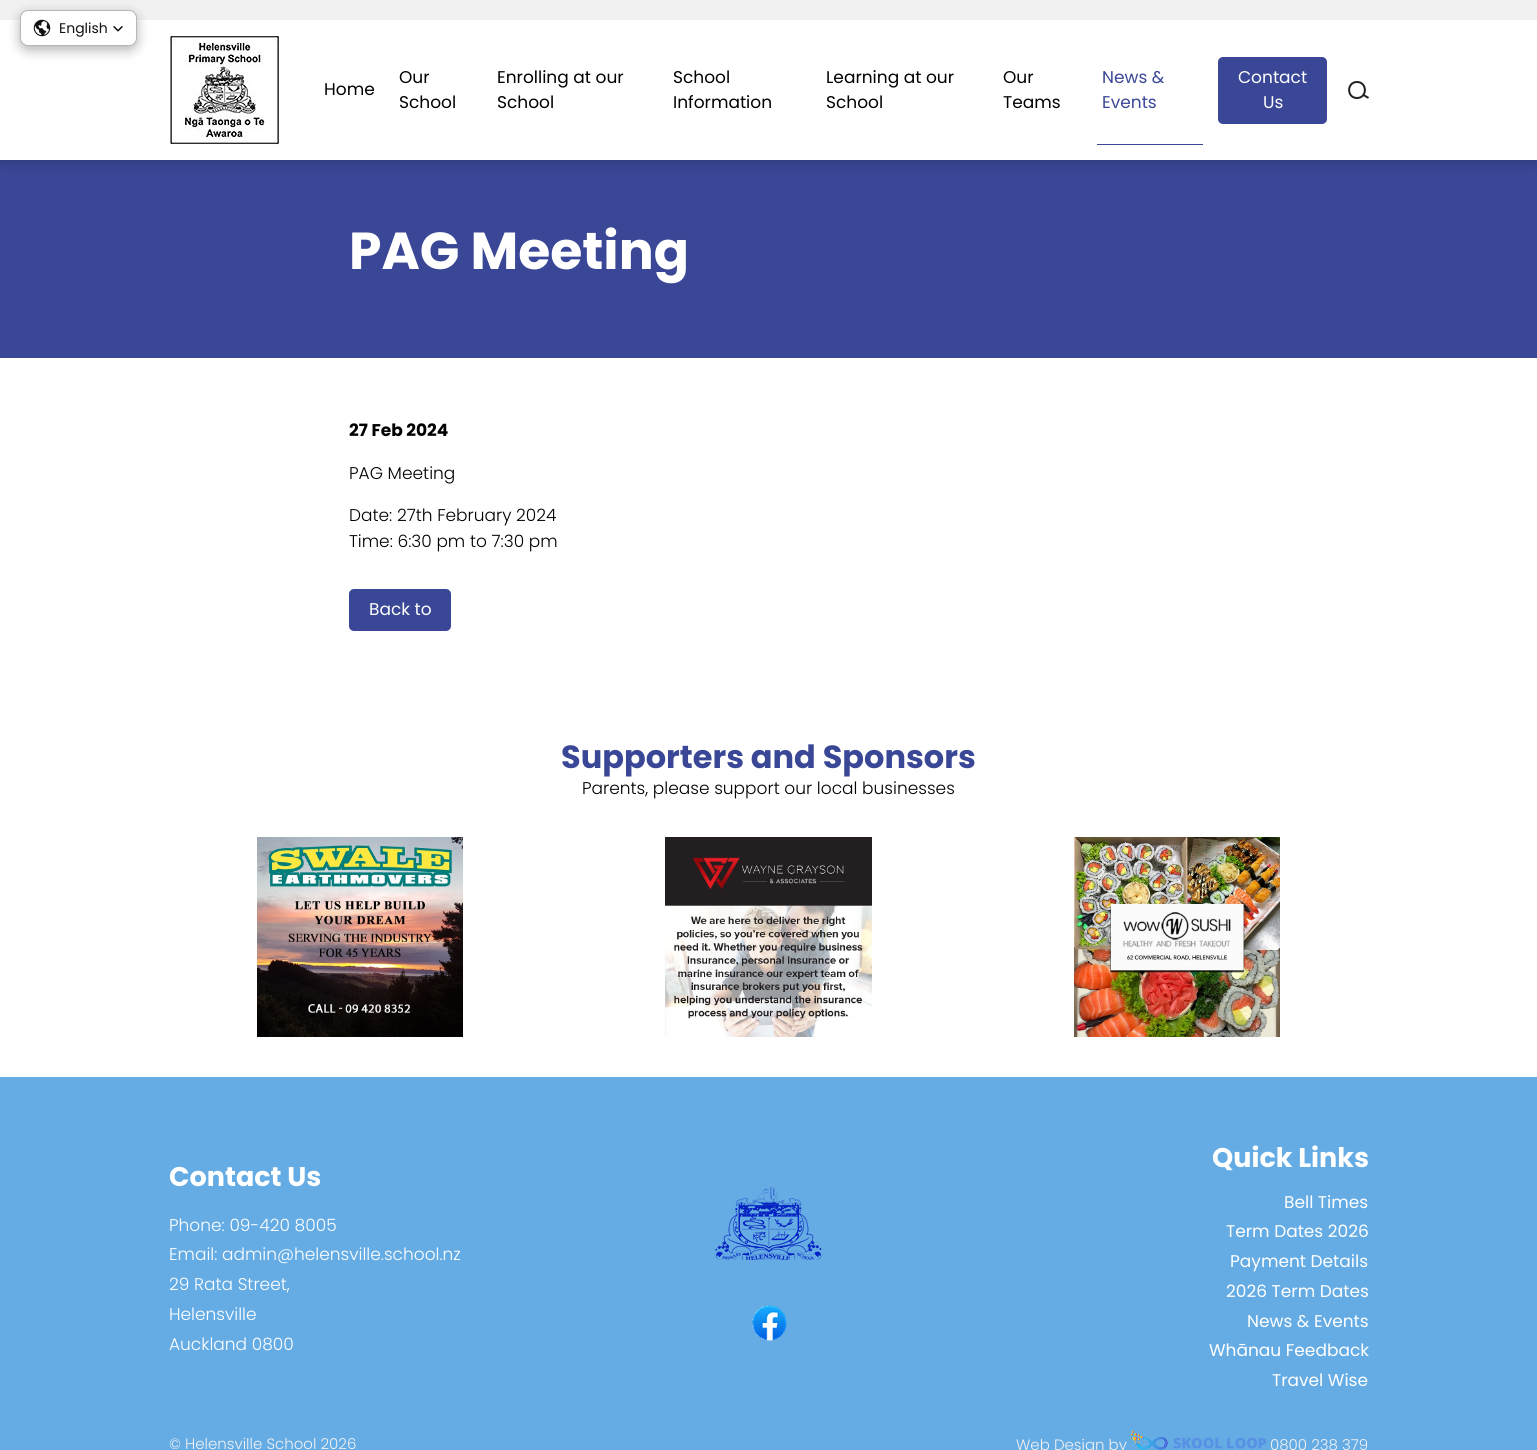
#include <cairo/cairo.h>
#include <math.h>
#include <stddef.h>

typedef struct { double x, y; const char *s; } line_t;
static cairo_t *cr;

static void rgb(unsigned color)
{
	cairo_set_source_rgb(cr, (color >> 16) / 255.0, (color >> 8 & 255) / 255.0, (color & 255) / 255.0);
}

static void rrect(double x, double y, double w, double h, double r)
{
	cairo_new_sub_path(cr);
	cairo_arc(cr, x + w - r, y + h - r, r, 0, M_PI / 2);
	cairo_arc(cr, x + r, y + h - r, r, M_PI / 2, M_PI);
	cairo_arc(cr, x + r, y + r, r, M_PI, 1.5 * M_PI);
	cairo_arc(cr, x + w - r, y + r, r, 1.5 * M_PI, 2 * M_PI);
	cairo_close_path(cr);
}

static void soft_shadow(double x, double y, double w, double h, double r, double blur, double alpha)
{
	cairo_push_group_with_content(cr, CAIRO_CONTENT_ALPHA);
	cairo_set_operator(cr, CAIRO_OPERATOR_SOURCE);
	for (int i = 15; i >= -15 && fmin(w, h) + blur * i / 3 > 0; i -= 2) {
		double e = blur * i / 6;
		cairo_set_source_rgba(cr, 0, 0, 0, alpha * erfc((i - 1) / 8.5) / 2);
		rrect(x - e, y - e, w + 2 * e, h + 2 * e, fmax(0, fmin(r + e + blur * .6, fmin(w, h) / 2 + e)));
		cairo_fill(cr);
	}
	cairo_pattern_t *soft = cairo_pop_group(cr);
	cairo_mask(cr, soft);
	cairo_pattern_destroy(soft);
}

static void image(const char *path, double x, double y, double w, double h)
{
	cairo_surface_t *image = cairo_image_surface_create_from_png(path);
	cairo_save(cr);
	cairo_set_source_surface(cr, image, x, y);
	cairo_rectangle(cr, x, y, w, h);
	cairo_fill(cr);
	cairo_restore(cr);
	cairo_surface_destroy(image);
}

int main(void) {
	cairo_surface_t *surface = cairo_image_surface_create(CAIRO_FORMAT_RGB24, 1537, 1450);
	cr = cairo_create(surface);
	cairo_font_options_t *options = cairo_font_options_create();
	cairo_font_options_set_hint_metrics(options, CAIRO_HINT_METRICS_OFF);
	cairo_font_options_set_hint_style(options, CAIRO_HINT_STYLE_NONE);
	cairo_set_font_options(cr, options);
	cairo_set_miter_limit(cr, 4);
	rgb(0xffffff);
	cairo_paint(cr);
	rgb(0x3a4796);
	cairo_rectangle(cr, 0, 160, 1537, 198);
	cairo_fill(cr);
	cairo_save(cr);
	cairo_rectangle(cr, 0, 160, 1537, 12);
	cairo_clip(cr);
	rgb(0x000000);
	soft_shadow(0, 2, 1537, 160, 0, 7.5, 0.2);
	cairo_restore(cr);
	rgb(0xf1f1f1);
	cairo_rectangle(cr, 0, 0, 1537, 20);
	cairo_fill(cr);
	rgb(0x000000);
	soft_shadow(20, 14, 117, 36, 8, 6, 0.3);
	rgb(0xffffff);
	rrect(20.5, 10.5, 116, 35, 7.5);
	cairo_fill_preserve(cr);
	rgb(0xb7b7b7);
	cairo_set_line_width(cr, 1);
	cairo_stroke(cr);
	image("img/1.png", 33, 19, 18, 18);
	image("img/2.png", 113, 26, 10, 6);
	image("img/3.png", 169, 36, 112, 109);
	rgb(0x3a4796);
	cairo_rectangle(cr, 1097, 144, 106, 1);
	cairo_fill(cr);
	rrect(1218, 57, 109, 67, 5);
	cairo_fill(cr);
	cairo_new_path(cr);
	cairo_move_to(cr, 1368.5, 98);
	cairo_line_to(cr, 1363.5, 95);
	rgb(0x231f20);
	cairo_set_line_width(cr, 2);
	cairo_set_line_join(cr, CAIRO_LINE_JOIN_ROUND);
	cairo_stroke(cr);
	cairo_new_path(cr);
	cairo_move_to(cr, 1357, 98);
	cairo_curve_to(cr, 1367.5, 98, 1367.5, 82, 1357, 82);
	cairo_curve_to(cr, 1346.5, 82, 1346.5, 98, 1357, 98);
	cairo_close_path(cr);
	cairo_set_line_cap(cr, CAIRO_LINE_CAP_ROUND);
	cairo_stroke(cr);
	rgb(0x3a4796);
	rrect(349, 589, 102, 42, 5);
	cairo_fill(cr);
	image("img/4.png", 257, 837, 206, 200);
	image("img/5.png", 665, 837, 207, 200);
	image("img/6.png", 1074, 837, 206, 200);
	rgb(0x65ace5);
	cairo_rectangle(cr, 0, 1077, 1537, 373);
	cairo_fill(cr);
	image("img/7.png", 715, 1187, 107, 73);
	image("img/8.png", 752, 1305, 35, 36);
	image("img/9.png", 1131, 1431, 135, 19);
	cairo_select_font_face(cr, "Poppins", CAIRO_FONT_SLANT_NORMAL, CAIRO_FONT_WEIGHT_NORMAL);
	cairo_set_font_size(cr, 14);
	rgb(0x111111);
	cairo_move_to(cr, 59, 33);
	cairo_show_text(cr, "English");
	cairo_set_font_size(cr, 17);
	rgb(0x000000);
	{
		static const line_t items[] = {
			{324, 95, "Home"},
			{399, 83, "Our"},
			{399, 108, "School"},
			{497, 83, "Enrolling at our"},
			{497, 108, "School"},
			{673, 83, "School"},
			{673, 108, "Information"},
			{826, 83, "Learning at our"},
			{826, 108, "School"},
			{1003, 83, "Our"},
			{1003, 108, "Teams"},
		};
		for (size_t i = 0; i < sizeof items / sizeof *items; i++) {
			cairo_move_to(cr, items[i].x, items[i].y);
			cairo_show_text(cr, items[i].s);
		}
	}
	rgb(0x3a4796);
	cairo_move_to(cr, 1102, 83);
	cairo_show_text(cr, "News &");
	cairo_move_to(cr, 1102, 108);
	cairo_show_text(cr, "Events");
	rgb(0xffffff);
	cairo_move_to(cr, 1238, 83);
	cairo_show_text(cr, "Contact");
	cairo_move_to(cr, 1263, 108);
	cairo_show_text(cr, "Us");
	cairo_select_font_face(cr, "Poppins", CAIRO_FONT_SLANT_NORMAL, CAIRO_FONT_WEIGHT_BOLD);
	cairo_set_font_size(cr, 52);
	cairo_move_to(cr, 349, 269);
	cairo_show_text(cr, "PAG Meeting");
	cairo_set_font_size(cr, 17);
	rgb(0x000000);
	cairo_move_to(cr, 349, 436);
	cairo_show_text(cr, "27 Feb 2024");
	cairo_select_font_face(cr, "Poppins Light", CAIRO_FONT_SLANT_NORMAL, CAIRO_FONT_WEIGHT_NORMAL);
	{
		static const line_t items[] = {
			{349, 479, "PAG Meeting"},
			{349, 521, "Date: 27th February 2024"},
			{349, 547, "Time: 6:30 pm to 7:30 pm"},
		};
		for (size_t i = 0; i < sizeof items / sizeof *items; i++) {
			cairo_move_to(cr, items[i].x, items[i].y);
			cairo_show_text(cr, items[i].s);
		}
	}
	cairo_select_font_face(cr, "Poppins", CAIRO_FONT_SLANT_NORMAL, CAIRO_FONT_WEIGHT_NORMAL);
	rgb(0xffffff);
	cairo_move_to(cr, 369, 615);
	cairo_show_text(cr, "Back to");
	cairo_select_font_face(cr, "Poppins", CAIRO_FONT_SLANT_NORMAL, CAIRO_FONT_WEIGHT_BOLD);
	cairo_set_font_size(cr, 32);
	rgb(0x3a4796);
	cairo_move_to(cr, 561, 768);
	cairo_show_text(cr, "Supporters and Sponsors");
	cairo_select_font_face(cr, "Poppins Light", CAIRO_FONT_SLANT_NORMAL, CAIRO_FONT_WEIGHT_NORMAL);
	cairo_set_font_size(cr, 17);
	rgb(0x000000);
	cairo_move_to(cr, 582, 794);
	cairo_show_text(cr, "Parents, please support our local businesses");
	cairo_select_font_face(cr, "Poppins", CAIRO_FONT_SLANT_NORMAL, CAIRO_FONT_WEIGHT_BOLD);
	cairo_set_font_size(cr, 27);
	rgb(0xffffff);
	cairo_move_to(cr, 169, 1186);
	cairo_show_text(cr, "Contact Us");
	cairo_select_font_face(cr, "Poppins Light", CAIRO_FONT_SLANT_NORMAL, CAIRO_FONT_WEIGHT_NORMAL);
	cairo_set_font_size(cr, 17);
	{
		static const line_t items[] = {
			{169, 1231, "Phone: 09-420 8005"},
			{169, 1260, "Email: admin@helensville.school.nz"},
			{169, 1290, "29 Rata Street,"},
			{169, 1320, "Helensville"},
			{169, 1350, "Auckland 0800"},
		};
		for (size_t i = 0; i < sizeof items / sizeof *items; i++) {
			cairo_move_to(cr, items[i].x, items[i].y);
			cairo_show_text(cr, items[i].s);
		}
	}
	cairo_select_font_face(cr, "Poppins", CAIRO_FONT_SLANT_NORMAL, CAIRO_FONT_WEIGHT_BOLD);
	cairo_set_font_size(cr, 27);
	cairo_move_to(cr, 1212, 1167);
	cairo_show_text(cr, "Quick Links");
	cairo_select_font_face(cr, "Poppins", CAIRO_FONT_SLANT_NORMAL, CAIRO_FONT_WEIGHT_NORMAL);
	cairo_set_font_size(cr, 17);
	{
		static const line_t items[] = {
			{1284, 1208, "Bell Times"},
			{1226, 1237, "Term Dates 2026"},
			{1230, 1267, "Payment Details"},
			{1226, 1297, "2026 Term Dates"},
			{1247, 1327, "News & Events"},
			{1209, 1356, "Whānau Feedback"},
			{1272, 1386, "Travel Wise"},
		};
		for (size_t i = 0; i < sizeof items / sizeof *items; i++) {
			cairo_move_to(cr, items[i].x, items[i].y);
			cairo_show_text(cr, items[i].s);
		}
	}
	cairo_select_font_face(cr, "Poppins Light", CAIRO_FONT_SLANT_NORMAL, CAIRO_FONT_WEIGHT_NORMAL);
	cairo_set_font_size(cr, 15);
	rgb(0xf1f1f1);
	{
		static const line_t items[] = {
			{169, 1449, "© Helensville School 2026"},
			{1016, 1450, "Web Design by"},
			{1270, 1450, "0800 238 379"},
		};
		for (size_t i = 0; i < sizeof items / sizeof *items; i++) {
			cairo_move_to(cr, items[i].x, items[i].y);
			cairo_show_text(cr, items[i].s);
		}
	}
	cairo_surface_write_to_png(surface, "page.png");
	cairo_font_options_destroy(options);
	cairo_destroy(cr);
	cairo_surface_destroy(surface);
	return 0;
}
